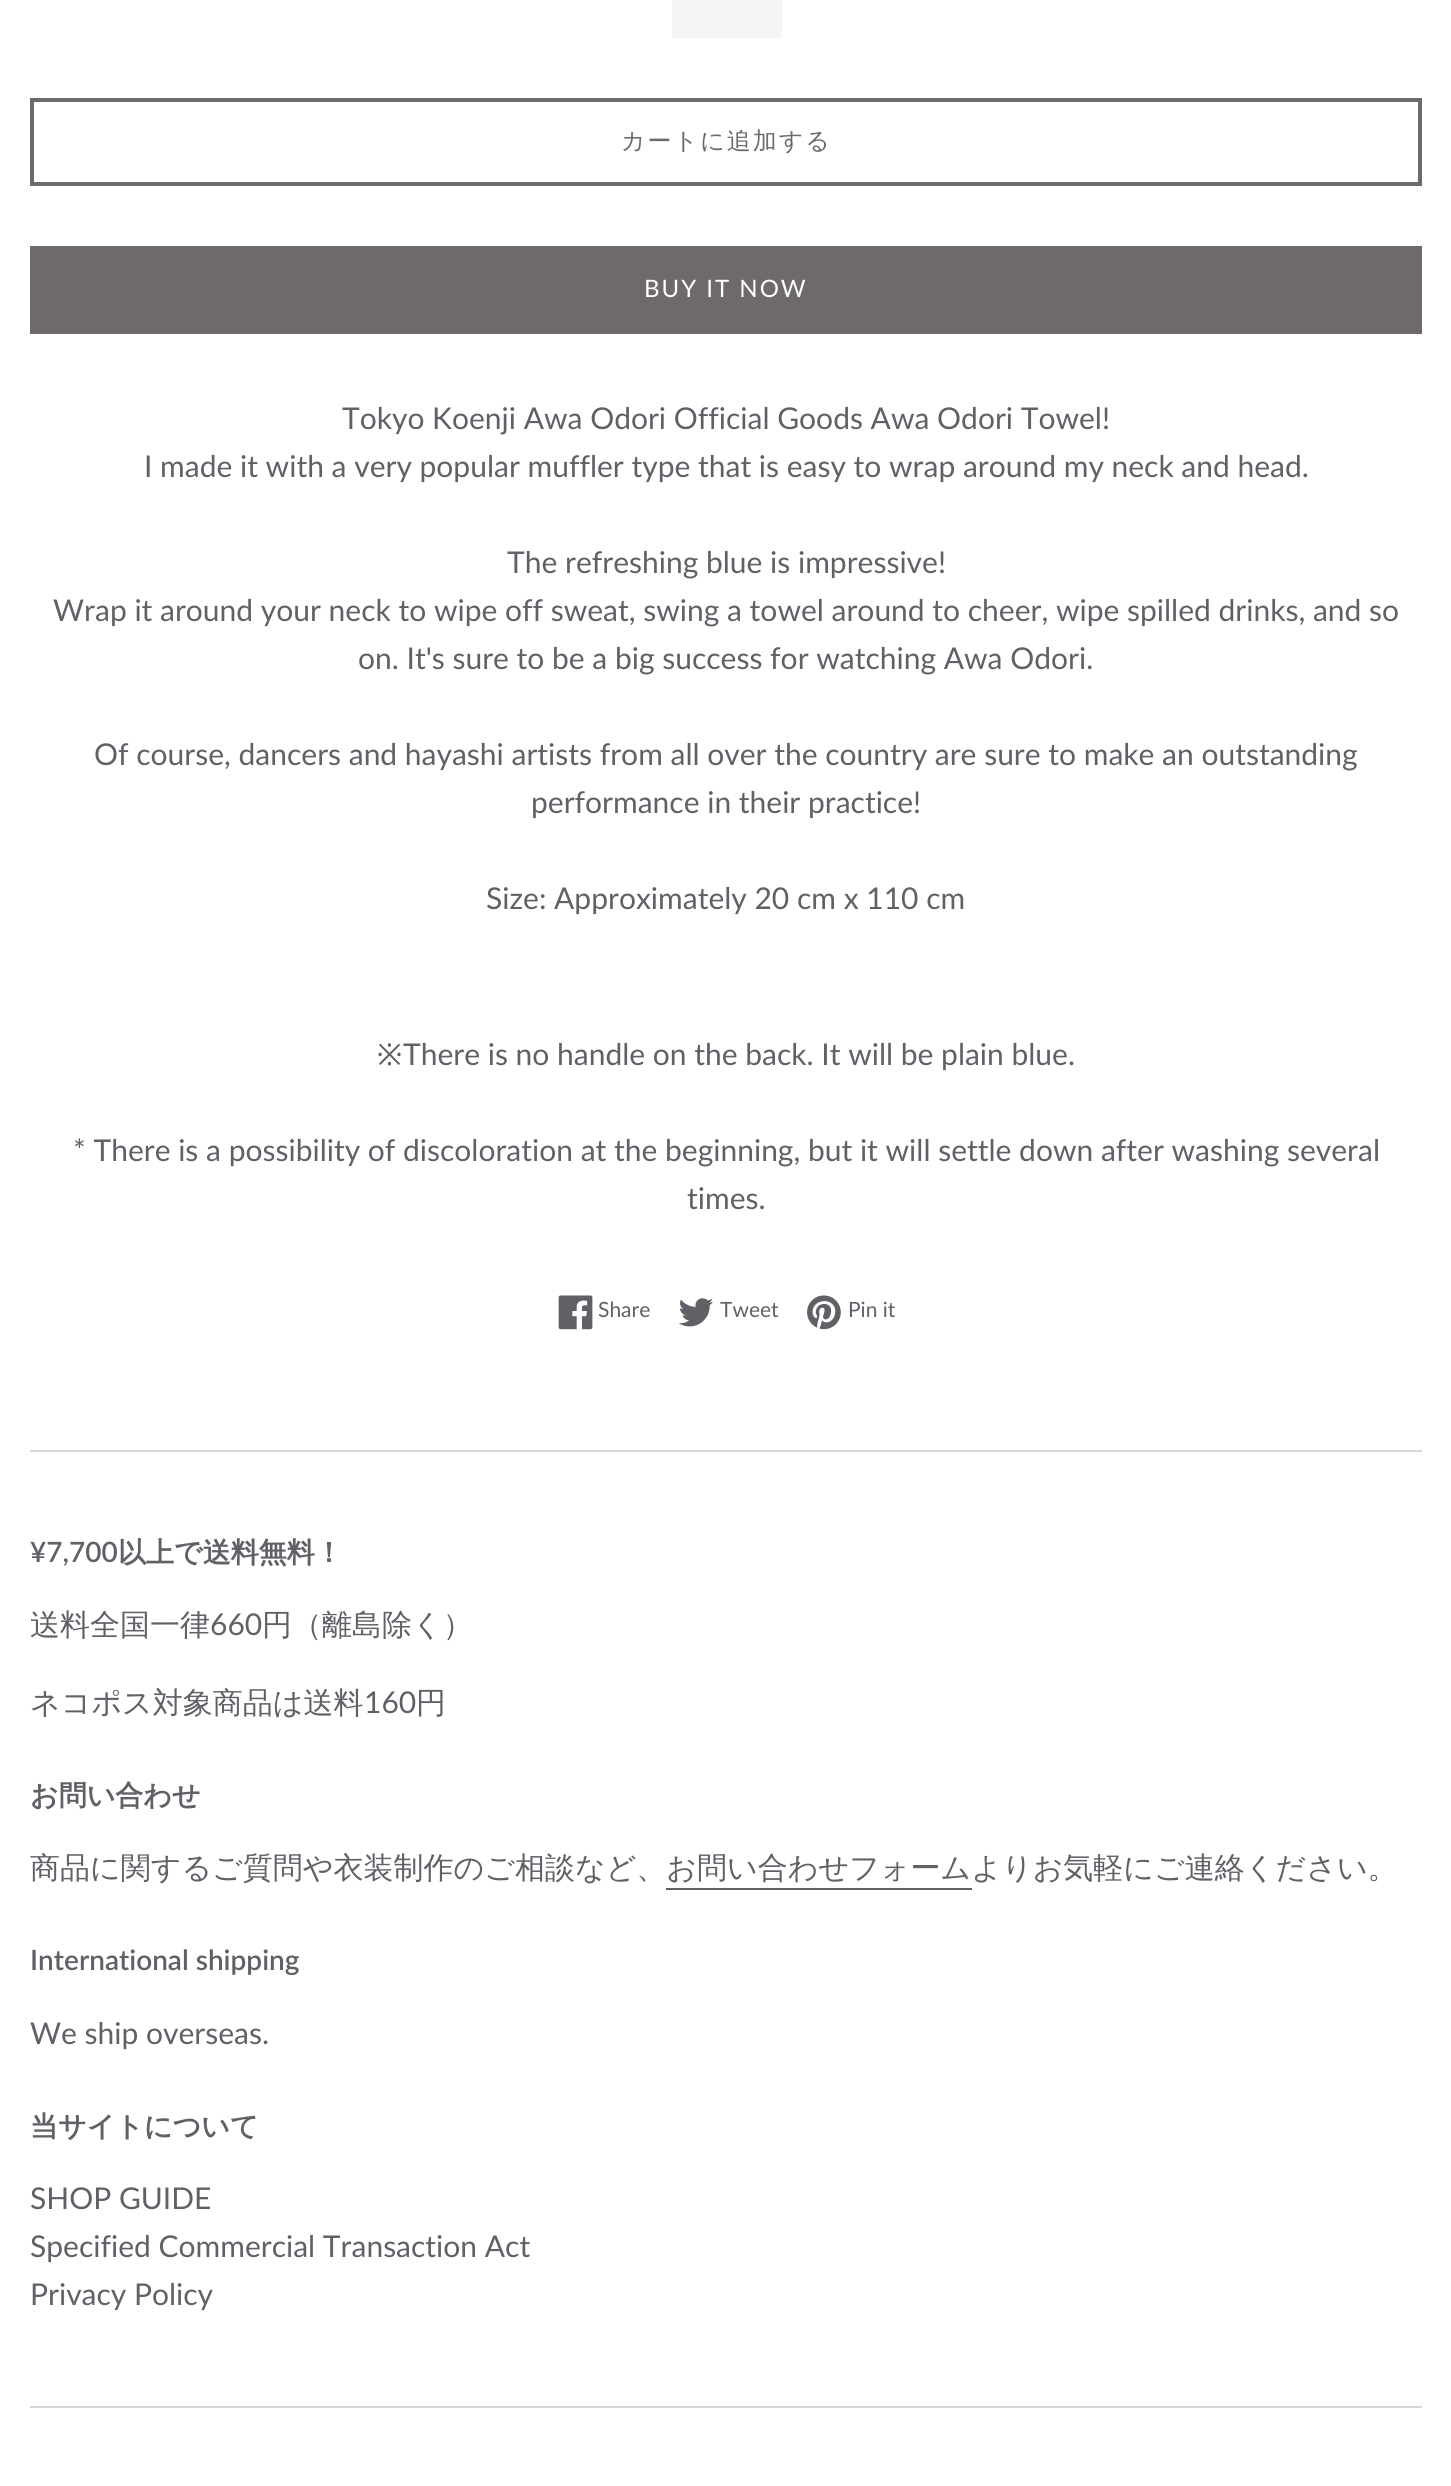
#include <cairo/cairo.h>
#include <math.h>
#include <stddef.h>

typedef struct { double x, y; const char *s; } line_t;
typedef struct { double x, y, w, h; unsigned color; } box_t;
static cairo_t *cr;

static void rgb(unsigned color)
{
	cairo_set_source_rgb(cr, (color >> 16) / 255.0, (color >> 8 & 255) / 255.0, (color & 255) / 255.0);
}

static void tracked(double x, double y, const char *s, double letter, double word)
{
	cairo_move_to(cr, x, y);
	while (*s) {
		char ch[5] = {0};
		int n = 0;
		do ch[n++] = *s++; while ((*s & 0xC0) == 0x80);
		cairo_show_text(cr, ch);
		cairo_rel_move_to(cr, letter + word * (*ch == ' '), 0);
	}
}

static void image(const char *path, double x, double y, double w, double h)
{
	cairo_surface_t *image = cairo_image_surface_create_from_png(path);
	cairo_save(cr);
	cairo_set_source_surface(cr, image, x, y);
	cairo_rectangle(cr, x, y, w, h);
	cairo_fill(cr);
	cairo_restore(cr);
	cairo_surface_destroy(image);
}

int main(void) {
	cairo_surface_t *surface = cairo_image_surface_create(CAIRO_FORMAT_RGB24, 1451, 2486);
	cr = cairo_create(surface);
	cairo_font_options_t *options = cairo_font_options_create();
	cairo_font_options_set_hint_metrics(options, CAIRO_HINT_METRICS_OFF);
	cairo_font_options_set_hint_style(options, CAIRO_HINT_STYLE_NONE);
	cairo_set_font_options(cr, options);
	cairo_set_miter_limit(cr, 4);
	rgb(0xffffff);
	cairo_paint(cr);
	rgb(0xf5f5f5);
	cairo_rectangle(cr, 672, 0, 110, 38);
	cairo_fill(cr);
	cairo_rectangle(cr, 32, 100, 1388, 84);
	rgb(0x6f6a6a);
	cairo_set_line_width(cr, 4);
	cairo_stroke(cr);
	cairo_rectangle(cr, 30, 246, 1392, 88);
	cairo_fill(cr);
	image("img/1.png", 558, 1295, 35, 35);
	image("img/2.png", 678, 1298, 35, 29);
	image("img/3.png", 807, 1295, 34, 35);
	{
		static const box_t items[] = {
			{30, 1450, 1392, 2, 0xd7d8d2},
			{666, 1888, 306, 2, 0x5f6167},
			{30, 2406, 1392, 2, 0xd7d8d2},
		};
		for (size_t i = 0; i < sizeof items / sizeof *items; i++) {
			rgb(items[i].color);
			cairo_rectangle(cr, items[i].x, items[i].y, items[i].w, items[i].h);
			cairo_fill(cr);
		}
	}
	cairo_select_font_face(cr, "WenQuanYi Zen Hei Medium", CAIRO_FONT_SLANT_NORMAL, CAIRO_FONT_WEIGHT_NORMAL);
	cairo_set_font_size(cr, 24);
	rgb(0x6f6a6a);
	tracked(621, 149, "カートに追加する", 2, 0);
	cairo_select_font_face(cr, "Lato", CAIRO_FONT_SLANT_NORMAL, CAIRO_FONT_WEIGHT_NORMAL);
	rgb(0xffffff);
	tracked(644, 297, "BUY IT NOW", 2, 0);
	cairo_set_font_size(cr, 30);
	rgb(0x5f6167);
	{
		static const line_t items[] = {
			{342, 429, "Tokyo Koenji Awa Odori Official Goods Awa Odori Towel!"},
			{144, 477, "I made it with a very popular muffler type that is easy to wrap around my neck and head."},
			{507, 573, "The refreshing blue is impressive!"},
			{53, 621, "Wrap it around your neck to wipe off sweat, swing a towel around to cheer, wipe spilled drinks, and so"},
			{358, 669, "on. It's sure to be a big success for watching Awa Odori."},
			{94, 765, "Of course, dancers and hayashi artists from all over the country are sure to make an outstanding"},
			{531, 813, "performance in their practice!"},
			{486, 909, "Size: Approximately 20 cm x 110 cm"},
		};
		for (size_t i = 0; i < sizeof items / sizeof *items; i++) {
			cairo_move_to(cr, items[i].x, items[i].y);
			cairo_show_text(cr, items[i].s);
		}
	}
	cairo_select_font_face(cr, "Noto Sans", CAIRO_FONT_SLANT_NORMAL, CAIRO_FONT_WEIGHT_NORMAL);
	cairo_move_to(cr, 377, 1065);
	cairo_show_text(cr, "※");
	cairo_select_font_face(cr, "Lato", CAIRO_FONT_SLANT_NORMAL, CAIRO_FONT_WEIGHT_NORMAL);
	{
		static const line_t items[] = {
			{403, 1065, "There is no handle on the back. It will be plain blue."},
			{73, 1161, "* There is a possibility of discoloration at the beginning, but it will settle down after washing several"},
			{687, 1209, "times."},
		};
		for (size_t i = 0; i < sizeof items / sizeof *items; i++) {
			cairo_move_to(cr, items[i].x, items[i].y);
			cairo_show_text(cr, items[i].s);
		}
	}
	cairo_set_font_size(cr, 21);
	{
		static const line_t items[] = {
			{598, 1317, "Share"},
			{720, 1317, "Tweet"},
			{848, 1317, "Pin it"},
		};
		for (size_t i = 0; i < sizeof items / sizeof *items; i++) {
			cairo_move_to(cr, items[i].x, items[i].y);
			cairo_show_text(cr, items[i].s);
		}
	}
	cairo_select_font_face(cr, "Lato SemiBold", CAIRO_FONT_SLANT_NORMAL, CAIRO_FONT_WEIGHT_NORMAL);
	cairo_set_font_size(cr, 28);
	cairo_move_to(cr, 30, 1562);
	cairo_show_text(cr, "¥7,700");
	cairo_select_font_face(cr, "WenQuanYi Zen Hei", CAIRO_FONT_SLANT_NORMAL, CAIRO_FONT_WEIGHT_BOLD);
	cairo_move_to(cr, 118, 1562);
	cairo_show_text(cr, "以上で送料無料！");
	cairo_select_font_face(cr, "WenQuanYi Zen Hei Medium", CAIRO_FONT_SLANT_NORMAL, CAIRO_FONT_WEIGHT_NORMAL);
	cairo_set_font_size(cr, 30);
	cairo_move_to(cr, 30, 1635);
	cairo_show_text(cr, "送料全国一律");
	cairo_select_font_face(cr, "Lato", CAIRO_FONT_SLANT_NORMAL, CAIRO_FONT_WEIGHT_NORMAL);
	cairo_move_to(cr, 210, 1635);
	cairo_show_text(cr, "660");
	cairo_select_font_face(cr, "WenQuanYi Zen Hei Medium", CAIRO_FONT_SLANT_NORMAL, CAIRO_FONT_WEIGHT_NORMAL);
	cairo_move_to(cr, 262, 1635);
	cairo_show_text(cr, "円（離島除く）");
	cairo_move_to(cr, 30, 1713);
	cairo_show_text(cr, "ネコポス対象商品は送料");
	cairo_select_font_face(cr, "Lato", CAIRO_FONT_SLANT_NORMAL, CAIRO_FONT_WEIGHT_NORMAL);
	cairo_move_to(cr, 364, 1713);
	cairo_show_text(cr, "160");
	cairo_select_font_face(cr, "WenQuanYi Zen Hei Medium", CAIRO_FONT_SLANT_NORMAL, CAIRO_FONT_WEIGHT_NORMAL);
	cairo_move_to(cr, 416, 1713);
	cairo_show_text(cr, "円");
	cairo_select_font_face(cr, "WenQuanYi Zen Hei", CAIRO_FONT_SLANT_NORMAL, CAIRO_FONT_WEIGHT_BOLD);
	cairo_set_font_size(cr, 28);
	cairo_move_to(cr, 30, 1805);
	cairo_show_text(cr, "お問い合わせ");
	cairo_select_font_face(cr, "WenQuanYi Zen Hei Medium", CAIRO_FONT_SLANT_NORMAL, CAIRO_FONT_WEIGHT_NORMAL);
	cairo_set_font_size(cr, 30);
	cairo_move_to(cr, 30, 1878);
	cairo_show_text(cr, "商品に関するご質問や衣装制作のご相談など、お問い合わせフォームよりお気軽にご連絡ください。");
	cairo_select_font_face(cr, "Lato SemiBold", CAIRO_FONT_SLANT_NORMAL, CAIRO_FONT_WEIGHT_NORMAL);
	cairo_set_font_size(cr, 28);
	cairo_move_to(cr, 30, 1970);
	cairo_show_text(cr, "International shipping");
	cairo_select_font_face(cr, "Lato", CAIRO_FONT_SLANT_NORMAL, CAIRO_FONT_WEIGHT_NORMAL);
	cairo_set_font_size(cr, 30);
	cairo_move_to(cr, 30, 2044);
	cairo_show_text(cr, "We ship overseas.");
	cairo_select_font_face(cr, "WenQuanYi Zen Hei", CAIRO_FONT_SLANT_NORMAL, CAIRO_FONT_WEIGHT_BOLD);
	cairo_set_font_size(cr, 28);
	cairo_move_to(cr, 30, 2136);
	cairo_show_text(cr, "当サイトについて");
	cairo_select_font_face(cr, "Lato", CAIRO_FONT_SLANT_NORMAL, CAIRO_FONT_WEIGHT_NORMAL);
	cairo_set_font_size(cr, 30);
	{
		static const line_t items[] = {
			{30, 2209, "SHOP GUIDE"},
			{30, 2257, "Specified Commercial Transaction Act"},
			{30, 2305, "Privacy Policy"},
		};
		for (size_t i = 0; i < sizeof items / sizeof *items; i++) {
			cairo_move_to(cr, items[i].x, items[i].y);
			cairo_show_text(cr, items[i].s);
		}
	}
	cairo_surface_write_to_png(surface, "page.png");
	cairo_font_options_destroy(options);
	cairo_destroy(cr);
	cairo_surface_destroy(surface);
	return 0;
}
